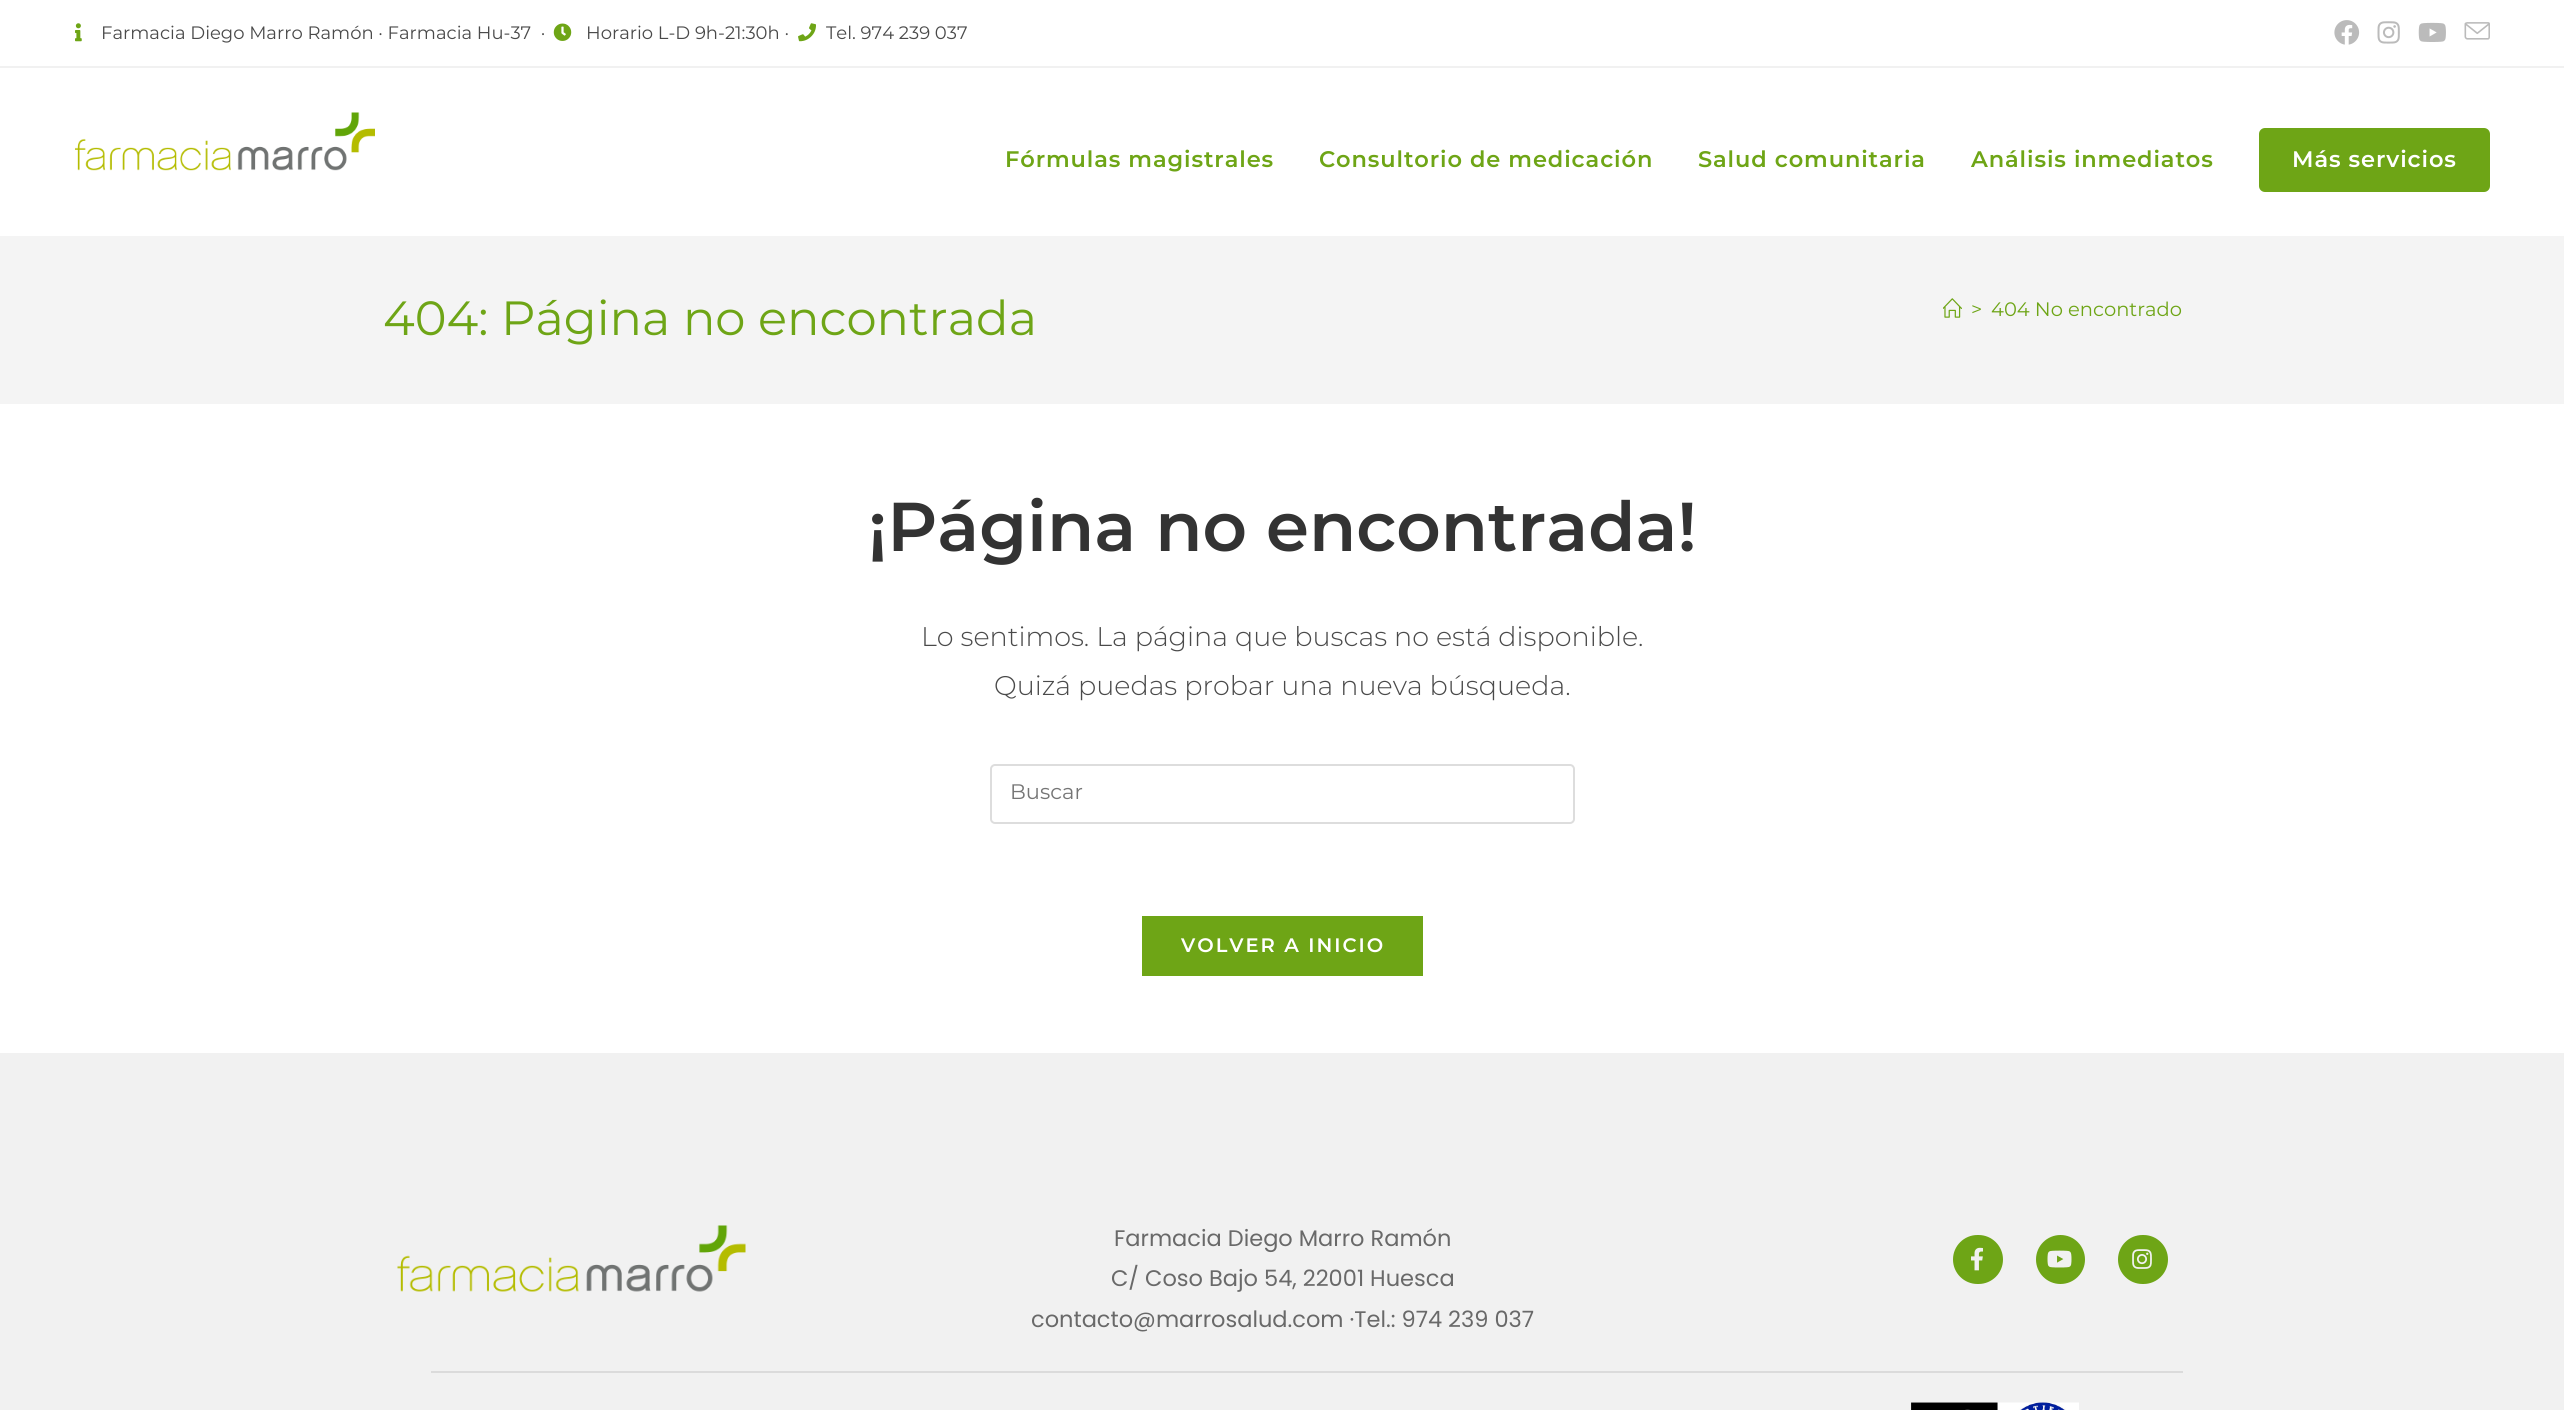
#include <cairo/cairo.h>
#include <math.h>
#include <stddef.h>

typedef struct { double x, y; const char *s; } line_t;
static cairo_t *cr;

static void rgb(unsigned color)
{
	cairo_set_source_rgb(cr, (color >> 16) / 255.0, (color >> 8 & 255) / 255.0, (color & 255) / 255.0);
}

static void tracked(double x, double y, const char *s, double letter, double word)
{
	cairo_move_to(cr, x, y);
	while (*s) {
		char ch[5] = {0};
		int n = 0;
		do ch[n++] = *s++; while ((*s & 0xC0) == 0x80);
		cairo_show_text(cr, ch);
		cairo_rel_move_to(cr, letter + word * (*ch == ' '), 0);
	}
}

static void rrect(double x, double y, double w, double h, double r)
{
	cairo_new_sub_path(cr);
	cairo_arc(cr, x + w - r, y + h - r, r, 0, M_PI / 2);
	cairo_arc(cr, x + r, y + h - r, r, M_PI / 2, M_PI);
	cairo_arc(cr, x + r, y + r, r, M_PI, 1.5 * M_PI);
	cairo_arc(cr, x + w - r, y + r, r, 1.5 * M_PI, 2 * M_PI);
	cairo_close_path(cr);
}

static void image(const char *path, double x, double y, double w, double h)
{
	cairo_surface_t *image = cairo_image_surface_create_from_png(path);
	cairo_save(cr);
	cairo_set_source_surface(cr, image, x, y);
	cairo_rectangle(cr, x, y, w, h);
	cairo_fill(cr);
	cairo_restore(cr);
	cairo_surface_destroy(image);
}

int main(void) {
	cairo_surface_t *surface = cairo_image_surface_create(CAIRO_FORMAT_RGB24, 2564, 1410);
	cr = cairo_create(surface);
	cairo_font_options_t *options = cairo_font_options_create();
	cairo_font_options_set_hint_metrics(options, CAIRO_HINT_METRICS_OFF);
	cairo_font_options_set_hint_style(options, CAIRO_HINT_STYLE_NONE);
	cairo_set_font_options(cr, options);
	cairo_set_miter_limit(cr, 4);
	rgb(0xffffff);
	cairo_paint(cr);
	rgb(0xf1f1f1);
	cairo_rectangle(cr, 0, 66, 2564, 2);
	cairo_fill(cr);
	image("img/1.png", 75, 23, 7, 19);
	image("img/2.png", 553, 23, 19, 18);
	image("img/3.png", 798, 23, 18, 19);
	image("img/4.png", 2334, 20, 26, 25);
	image("img/5.png", 2377, 21, 23, 23);
	image("img/6.png", 2418, 22, 28, 20);
	image("img/7.png", 2464, 22, 26, 18);
	image("img/8.png", 75, 112, 300, 59);
	rgb(0x6ea516);
	rrect(2259, 128, 231, 64, 6);
	cairo_fill(cr);
	rgb(0xf4f4f4);
	cairo_rectangle(cr, 0, 236, 2564, 168);
	cairo_fill(cr);
	image("img/9.png", 1943, 298, 19, 20);
	rrect(991, 765, 583, 58, 4);
	rgb(0xdddddd);
	cairo_stroke(cr);
	rgb(0x6ea516);
	cairo_rectangle(cr, 1142, 916, 281, 60);
	cairo_fill(cr);
	rgb(0xf1f1f1);
	cairo_rectangle(cr, 0, 1053, 2564, 357);
	cairo_fill(cr);
	image("img/10.png", 397, 1225, 349, 67);
	rgb(0x6ea516);
	rrect(1953, 1235, 50, 49, 24.5);
	cairo_fill(cr);
	image("img/11.png", 1971, 1247, 12, 24);
	cairo_arc(cr, 2060.5, 1259.5, 24.5, 0, 2 * M_PI);
	cairo_fill(cr);
	image("img/12.png", 2047, 1250, 25, 18);
	rrect(2118, 1235, 50, 49, 24.5);
	cairo_fill(cr);
	image("img/13.png", 2132, 1249, 20, 20);
	rgb(0xdbdbdb);
	cairo_rectangle(cr, 431, 1371, 1752, 2);
	cairo_fill(cr);
	image("img/14.png", 1911, 1402, 168, 8);
	cairo_select_font_face(cr, "Montserrat", CAIRO_FONT_SLANT_NORMAL, CAIRO_FONT_WEIGHT_NORMAL);
	cairo_set_font_size(cr, 18);
	rgb(0x4a4a4a);
	{
		static const line_t items[] = {
			{101, 39, "Farmacia Diego Marro Ramón · Farmacia Hu-37  ·"},
			{586, 39, "Horario L-D 9h-21:30h ·"},
			{826, 39, "Tel. 974 239 037"},
		};
		for (size_t i = 0; i < sizeof items / sizeof *items; i++) {
			cairo_move_to(cr, items[i].x, items[i].y);
			cairo_show_text(cr, items[i].s);
		}
	}
	cairo_select_font_face(cr, "Montserrat SemiBold", CAIRO_FONT_SLANT_NORMAL, CAIRO_FONT_WEIGHT_NORMAL);
	cairo_set_font_size(cr, 22.5);
	rgb(0x6ea516);
	{
		static const line_t items[] = {
			{1005, 167, "Fórmulas magistrales"},
			{1319, 167, "Consultorio de medicación"},
			{1698, 167, "Salud comunitaria"},
			{1971, 167, "Análisis inmediatos"},
		};
		for (size_t i = 0; i < sizeof items / sizeof *items; i++) {
			tracked(items[i].x, items[i].y, items[i].s, 0.9, 0);
		}
	}
	rgb(0xffffff);
	tracked(2292, 167, "Más servicios", 0.9, 0);
	cairo_select_font_face(cr, "Montserrat", CAIRO_FONT_SLANT_NORMAL, CAIRO_FONT_WEIGHT_NORMAL);
	cairo_set_font_size(cr, 48);
	rgb(0x6ea516);
	cairo_move_to(cr, 383, 335);
	cairo_show_text(cr, "404: Página no encontrada");
	cairo_set_font_size(cr, 19.5);
	cairo_move_to(cr, 1971, 316);
	cairo_show_text(cr, ">");
	cairo_move_to(cr, 1991, 316);
	cairo_show_text(cr, "404 No encontrado");
	cairo_select_font_face(cr, "Montserrat SemiBold", CAIRO_FONT_SLANT_NORMAL, CAIRO_FONT_WEIGHT_NORMAL);
	cairo_set_font_size(cr, 69);
	rgb(0x333333);
	cairo_move_to(cr, 868, 551);
	cairo_show_text(cr, "¡Página no encontrada!");
	cairo_select_font_face(cr, "Montserrat Light", CAIRO_FONT_SLANT_NORMAL, CAIRO_FONT_WEIGHT_NORMAL);
	cairo_set_font_size(cr, 27);
	rgb(0x4a4a4a);
	cairo_move_to(cr, 921, 646);
	cairo_show_text(cr, "Lo sentimos. La página que buscas no está disponible.");
	cairo_move_to(cr, 994, 695);
	cairo_show_text(cr, "Quizá puedas probar una nueva búsqueda.");
	cairo_select_font_face(cr, "Montserrat", CAIRO_FONT_SLANT_NORMAL, CAIRO_FONT_WEIGHT_NORMAL);
	cairo_set_font_size(cr, 21);
	rgb(0x757575);
	cairo_move_to(cr, 1010, 799);
	cairo_show_text(cr, "Buscar");
	cairo_select_font_face(cr, "Montserrat SemiBold", CAIRO_FONT_SLANT_NORMAL, CAIRO_FONT_WEIGHT_NORMAL);
	cairo_set_font_size(cr, 19.5);
	rgb(0xffffff);
	tracked(1181, 952, "VOLVER A INICIO", 2, 0);
	cairo_select_font_face(cr, "Poppins", CAIRO_FONT_SLANT_NORMAL, CAIRO_FONT_WEIGHT_NORMAL);
	cairo_set_font_size(cr, 22.5);
	rgb(0x696969);
	{
		static const line_t items[] = {
			{1114, 1246, "Farmacia Diego Marro Ramón"},
			{1111, 1286, "C/ Coso Bajo 54, 22001 Huesca"},
			{1031, 1327, "contacto@marrosalud.com ·Tel.: 974 239 037"},
		};
		for (size_t i = 0; i < sizeof items / sizeof *items; i++) {
			cairo_move_to(cr, items[i].x, items[i].y);
			cairo_show_text(cr, items[i].s);
		}
	}
	cairo_surface_write_to_png(surface, "page.png");
	cairo_font_options_destroy(options);
	cairo_destroy(cr);
	cairo_surface_destroy(surface);
	return 0;
}
